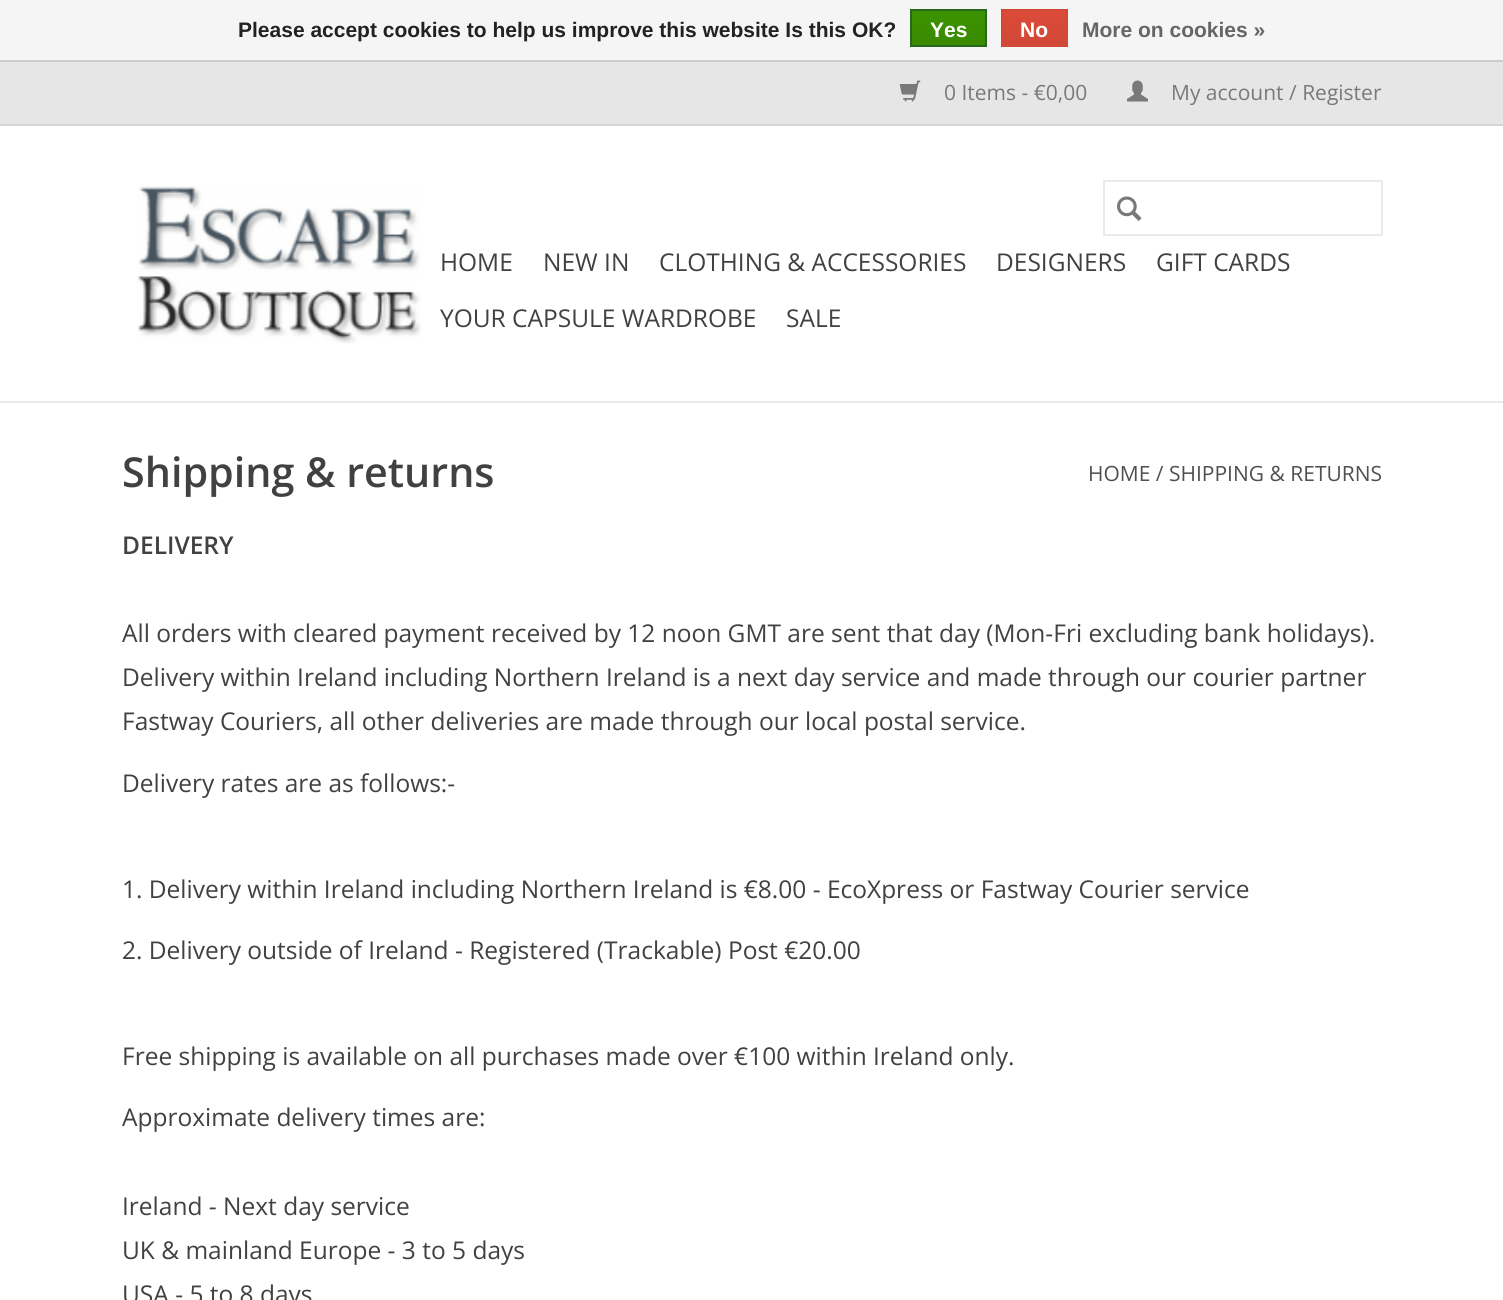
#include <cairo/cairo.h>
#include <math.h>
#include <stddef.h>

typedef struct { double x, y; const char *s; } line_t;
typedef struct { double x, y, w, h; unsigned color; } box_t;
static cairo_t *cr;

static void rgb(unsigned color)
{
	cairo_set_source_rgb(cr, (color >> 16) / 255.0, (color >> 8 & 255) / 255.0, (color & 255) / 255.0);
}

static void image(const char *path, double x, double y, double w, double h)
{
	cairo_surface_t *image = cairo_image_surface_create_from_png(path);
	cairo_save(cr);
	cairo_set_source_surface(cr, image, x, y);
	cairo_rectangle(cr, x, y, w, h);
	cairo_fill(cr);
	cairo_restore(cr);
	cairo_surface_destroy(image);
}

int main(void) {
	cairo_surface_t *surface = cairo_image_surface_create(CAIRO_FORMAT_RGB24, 1503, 1300);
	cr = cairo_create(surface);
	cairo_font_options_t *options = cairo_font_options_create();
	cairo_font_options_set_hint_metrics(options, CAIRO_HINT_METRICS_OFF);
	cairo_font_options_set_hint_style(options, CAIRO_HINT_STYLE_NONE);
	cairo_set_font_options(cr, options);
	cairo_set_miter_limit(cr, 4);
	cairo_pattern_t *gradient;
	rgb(0xffffff);
	cairo_paint(cr);
	rgb(0xf5f5f5);
	cairo_rectangle(cr, 0, 0, 1503, 60);
	cairo_fill(cr);
	rgb(0xcccccc);
	cairo_rectangle(cr, 0, 60, 1503, 2);
	cairo_fill(cr);
	gradient = cairo_pattern_create_linear(949, 10, 949, 46);
	cairo_pattern_add_color_stop_rgba(gradient, 0, 0.235, 0.576, 0, 1);
	cairo_pattern_add_color_stop_rgba(gradient, 1, 0.224, 0.541, 0, 1);
	cairo_set_source(cr, gradient);
	cairo_pattern_destroy(gradient);
	cairo_rectangle(cr, 912, 11, 73, 34);
	cairo_fill(cr);
	cairo_rectangle(cr, 911, 10, 75, 36);
	rgb(0x29691d);
	cairo_stroke(cr);
	gradient = cairo_pattern_create_linear(1034, 10, 1034, 46);
	cairo_pattern_add_color_stop_rgba(gradient, 0, 0.863, 0.29, 0.22, 1);
	cairo_pattern_add_color_stop_rgba(gradient, 1, 0.82, 0.282, 0.212, 1);
	cairo_set_source(cr, gradient);
	cairo_pattern_destroy(gradient);
	cairo_rectangle(cr, 1003, 11, 63, 34);
	cairo_fill(cr);
	cairo_rectangle(cr, 1002, 10, 65, 36);
	rgb(0xd14836);
	cairo_stroke(cr);
	{
		static const box_t items[] = {
			{0, 401, 1503, 2, 0xeaeaea},
			{0, 62, 1503, 62, 0xe6e6e6},
			{0, 124, 1503, 2, 0xd5d5d5},
		};
		for (size_t i = 0; i < sizeof items / sizeof *items; i++) {
			rgb(items[i].color);
			cairo_rectangle(cr, items[i].x, items[i].y, items[i].w, items[i].h);
			cairo_fill(cr);
		}
	}
	image("img/1.png", 899, 80, 22, 22);
	image("img/2.png", 1127, 80, 21, 22);
	image("img/3.png", 137, 186, 284, 158);
	cairo_rectangle(cr, 1104, 181, 278, 54);
	rgb(0xeaeaea);
	cairo_stroke(cr);
	image("img/4.png", 1117, 196, 25, 25);
	cairo_select_font_face(cr, "Liberation Sans", CAIRO_FONT_SLANT_NORMAL, CAIRO_FONT_WEIGHT_BOLD);
	cairo_set_font_size(cr, 21);
	rgb(0x222222);
	cairo_move_to(cr, 238, 37);
	cairo_show_text(cr, "Please accept cookies to help us improve this website Is this OK?");
	rgb(0xffffff);
	cairo_move_to(cr, 930, 37);
	cairo_show_text(cr, "Yes");
	cairo_move_to(cr, 1020, 37);
	cairo_show_text(cr, "No");
	rgb(0x666666);
	cairo_move_to(cr, 1082, 37);
	cairo_show_text(cr, "More on cookies »");
	cairo_select_font_face(cr, "Open Sans", CAIRO_FONT_SLANT_NORMAL, CAIRO_FONT_WEIGHT_NORMAL);
	rgb(0x797979);
	cairo_move_to(cr, 944, 100);
	cairo_show_text(cr, "0 Items - €0,00");
	cairo_move_to(cr, 1171, 100);
	cairo_show_text(cr, "My account / Register");
	cairo_set_font_size(cr, 24.5);
	rgb(0x414141);
	{
		static const line_t items[] = {
			{440, 271, "HOME"},
			{543, 271, "NEW IN"},
			{659, 271, "CLOTHING & ACCESSORIES"},
			{996, 271, "DESIGNERS"},
			{1156, 271, "GIFT CARDS"},
			{440, 327, "YOUR CAPSULE WARDROBE"},
			{786, 327, "SALE"},
		};
		for (size_t i = 0; i < sizeof items / sizeof *items; i++) {
			cairo_move_to(cr, items[i].x, items[i].y);
			cairo_show_text(cr, items[i].s);
		}
	}
	cairo_select_font_face(cr, "Open Sans SemiBold", CAIRO_FONT_SLANT_NORMAL, CAIRO_FONT_WEIGHT_NORMAL);
	cairo_set_font_size(cr, 41.25);
	cairo_move_to(cr, 122, 487);
	cairo_show_text(cr, "Shipping & returns");
	cairo_select_font_face(cr, "Open Sans", CAIRO_FONT_SLANT_NORMAL, CAIRO_FONT_WEIGHT_NORMAL);
	cairo_set_font_size(cr, 21);
	rgb(0x505050);
	cairo_move_to(cr, 1088, 481);
	cairo_show_text(cr, "HOME / SHIPPING & RETURNS");
	cairo_select_font_face(cr, "Open Sans SemiBold", CAIRO_FONT_SLANT_NORMAL, CAIRO_FONT_WEIGHT_NORMAL);
	cairo_set_font_size(cr, 24.5);
	rgb(0x414141);
	cairo_move_to(cr, 122, 554);
	cairo_show_text(cr, "DELIVERY");
	cairo_select_font_face(cr, "Open Sans", CAIRO_FONT_SLANT_NORMAL, CAIRO_FONT_WEIGHT_NORMAL);
	{
		static const line_t items[] = {
			{122, 642, "All orders with cleared payment received by 12 noon GMT are sent that day (Mon-Fri excluding bank holidays)."},
			{122, 686, "Delivery within Ireland including Northern Ireland is a next day service and made through our courier partner"},
			{122, 730, "Fastway Couriers, all other deliveries are made through our local postal service."},
			{122, 792, "Delivery rates are as follows:-"},
			{122, 898, "1. Delivery within Ireland including Northern Ireland is €8.00 - EcoXpress or Fastway Courier service"},
			{122, 959, "2. Delivery outside of Ireland - Registered (Trackable) Post €20.00"},
			{122, 1065, "Free shipping is available on all purchases made over €100 within Ireland only."},
			{122, 1126, "Approximate delivery times are:"},
			{122, 1215, "Ireland - Next day service"},
			{122, 1259, "UK & mainland Europe - 3 to 5 days"},
			{122, 1303, "USA - 5 to 8 days"},
		};
		for (size_t i = 0; i < sizeof items / sizeof *items; i++) {
			cairo_move_to(cr, items[i].x, items[i].y);
			cairo_show_text(cr, items[i].s);
		}
	}
	cairo_surface_write_to_png(surface, "page.png");
	cairo_font_options_destroy(options);
	cairo_destroy(cr);
	cairo_surface_destroy(surface);
	return 0;
}
